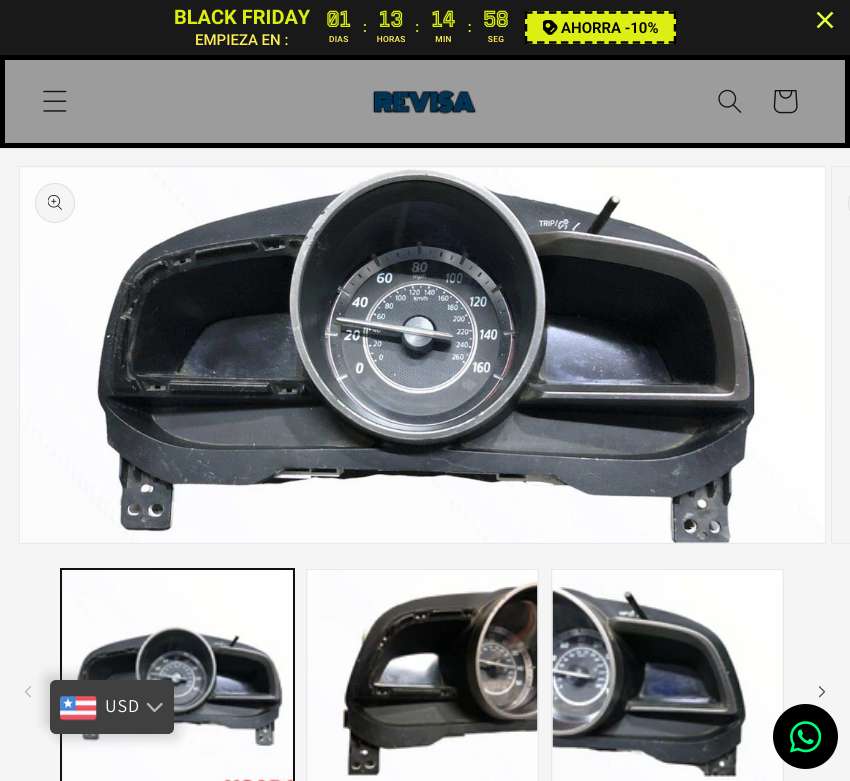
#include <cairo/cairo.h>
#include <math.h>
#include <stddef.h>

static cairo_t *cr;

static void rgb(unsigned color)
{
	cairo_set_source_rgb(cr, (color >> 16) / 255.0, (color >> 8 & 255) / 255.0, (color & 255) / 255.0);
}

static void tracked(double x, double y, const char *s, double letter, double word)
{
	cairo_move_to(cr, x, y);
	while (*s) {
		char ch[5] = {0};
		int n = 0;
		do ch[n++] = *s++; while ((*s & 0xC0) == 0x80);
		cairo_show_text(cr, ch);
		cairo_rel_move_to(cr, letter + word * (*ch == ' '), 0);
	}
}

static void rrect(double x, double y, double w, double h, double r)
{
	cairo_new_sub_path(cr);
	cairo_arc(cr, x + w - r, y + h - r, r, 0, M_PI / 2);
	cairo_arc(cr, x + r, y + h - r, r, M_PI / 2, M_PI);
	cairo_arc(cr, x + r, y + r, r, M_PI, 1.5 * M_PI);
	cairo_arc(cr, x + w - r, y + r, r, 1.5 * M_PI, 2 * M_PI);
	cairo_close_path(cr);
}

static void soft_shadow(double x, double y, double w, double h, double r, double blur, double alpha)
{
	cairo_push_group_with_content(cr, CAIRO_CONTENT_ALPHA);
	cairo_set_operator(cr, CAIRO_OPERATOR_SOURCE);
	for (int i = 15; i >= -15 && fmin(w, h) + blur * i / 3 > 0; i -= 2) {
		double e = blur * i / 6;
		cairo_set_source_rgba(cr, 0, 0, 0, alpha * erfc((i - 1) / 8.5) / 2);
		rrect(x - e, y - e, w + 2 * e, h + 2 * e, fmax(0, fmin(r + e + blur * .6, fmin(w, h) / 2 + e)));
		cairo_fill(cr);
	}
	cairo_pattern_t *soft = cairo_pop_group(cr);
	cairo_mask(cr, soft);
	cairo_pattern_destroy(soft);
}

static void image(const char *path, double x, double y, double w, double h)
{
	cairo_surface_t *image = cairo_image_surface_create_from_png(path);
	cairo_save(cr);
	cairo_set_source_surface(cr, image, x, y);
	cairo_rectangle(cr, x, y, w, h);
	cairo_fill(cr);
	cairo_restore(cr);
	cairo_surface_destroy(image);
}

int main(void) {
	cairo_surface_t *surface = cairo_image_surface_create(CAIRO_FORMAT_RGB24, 850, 781);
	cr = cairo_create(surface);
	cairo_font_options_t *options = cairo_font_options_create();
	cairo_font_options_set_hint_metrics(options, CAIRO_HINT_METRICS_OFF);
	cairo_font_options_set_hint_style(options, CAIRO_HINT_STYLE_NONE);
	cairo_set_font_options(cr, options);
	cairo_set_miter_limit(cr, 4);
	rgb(0xf5f5f5);
	cairo_paint(cr);
	rgb(0x191919);
	cairo_rectangle(cr, 0, 0, 850, 55);
	cairo_fill(cr);
	image("img/1.png", 327, 10, 181, 32);
	rgb(0xdcee13);
	cairo_rectangle(cr, 525, 11, 151, 33);
	cairo_fill(cr);
	cairo_new_path(cr);
	cairo_move_to(cr, 525, 12.5);
	cairo_line_to(cr, 676, 12.5);
	rgb(0x000000);
	cairo_set_line_width(cr, 2.5);
	cairo_set_dash(cr, (double[]){7.5, 4.47}, 2, 0);
	cairo_stroke(cr);
	cairo_new_path(cr);
	cairo_move_to(cr, 675, 11);
	cairo_line_to(cr, 675, 19);
	cairo_move_to(cr, 675, 24);
	cairo_line_to(cr, 675, 31.5);
	cairo_move_to(cr, 675, 36);
	cairo_line_to(cr, 675, 44);
	cairo_set_dash(cr, NULL, 0, 0);
	cairo_stroke(cr);
	cairo_new_path(cr);
	cairo_move_to(cr, 525, 42.5);
	cairo_line_to(cr, 676, 42.5);
	cairo_set_dash(cr, (double[]){7.5, 4.47}, 2, 0);
	cairo_stroke(cr);
	cairo_new_path(cr);
	cairo_move_to(cr, 526, 11);
	cairo_line_to(cr, 526, 19);
	cairo_move_to(cr, 526, 24);
	cairo_line_to(cr, 526, 31.5);
	cairo_move_to(cr, 526, 36);
	cairo_line_to(cr, 526, 44);
	cairo_set_dash(cr, NULL, 0, 0);
	cairo_stroke(cr);
	image("img/2.png", 543, 20, 15, 15);
	cairo_new_path(cr);
	cairo_move_to(cr, 832.5, 12.5);
	cairo_line_to(cr, 817.5, 27.5);
	cairo_move_to(cr, 832.5, 27.5);
	cairo_line_to(cr, 817.5, 12.5);
	rgb(0xe2ff3f);
	cairo_stroke(cr);
	rgb(0xe3e3e3);
	cairo_rectangle(cr, 0, 148, 850, 1);
	cairo_fill(cr);
	rgb(0x9c9c9c);
	cairo_rectangle(cr, 2.5, 57.5, 845, 88);
	cairo_fill_preserve(cr);
	rgb(0x000000);
	cairo_set_line_width(cr, 5);
	cairo_stroke(cr);
	image("img/3.png", 43, 90, 24, 22);
	image("img/4.png", 372, 89, 105, 25);
	image("img/5.png", 718, 89, 24, 24);
	image("img/6.png", 773, 90, 25, 24);
	cairo_rectangle(cr, 19.5, 166.5, 806, 377);
	rgb(0xeaeaea);
	cairo_set_line_width(cr, 1);
	cairo_stroke(cr);
	image("img/7.png", 20, 167, 805, 376);
	rgb(0xf5f5f5);
	cairo_arc(cr, 55, 203, 20, 0, 2 * M_PI);
	cairo_fill(cr);
	cairo_arc(cr, 55, 203, 19.5, 0, 2 * M_PI);
	cairo_set_source_rgba(cr, 0.071, 0.071, 0.071, 0.1);
	cairo_stroke(cr);
	image("img/8.png", 48, 195, 14, 15);
	cairo_rectangle(cr, 831.5, 166.5, 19, 377);
	rgb(0xeaeaea);
	cairo_stroke(cr);
	rrect(848.5, 183.5, 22, 39, 19.5);
	rgb(0xdedede);
	cairo_stroke(cr);
	image("img/9.png", 25, 686, 6, 12);
	cairo_rectangle(cr, 60.5, 568.5, 234, 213);
	rgb(0x121212);
	cairo_stroke(cr);
	cairo_rectangle(cr, 61.5, 569.5, 232, 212);
	cairo_stroke(cr);
	image("img/10.png", 63, 570, 230, 211);
	cairo_rectangle(cr, 306.5, 569.5, 232, 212);
	rgb(0xeaeaea);
	cairo_stroke(cr);
	image("img/11.png", 308, 570, 230, 211);
	cairo_rectangle(cr, 551.5, 569.5, 232, 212);
	cairo_stroke(cr);
	image("img/12.png", 552, 570, 230, 211);
	image("img/13.png", 819, 686, 7, 12);
	rgb(0x616161);
	soft_shadow(44, 674, 124, 54, 6, 6, 0.24);
	soft_shadow(56, 686, 124, 54, 6, 6, 0.24);
	rgb(0x404040);
	rrect(50, 680, 124, 54, 6);
	cairo_fill(cr);
	image("img/14.png", 60, 696, 37, 25);
	cairo_new_path(cr);
	cairo_move_to(cr, 148, 704);
	cairo_line_to(cr, 154.5, 711);
	cairo_line_to(cr, 161.5, 704);
	rgb(0xb7b7b7);
	cairo_set_line_width(cr, 2.3);
	cairo_set_line_cap(cr, CAIRO_LINE_CAP_ROUND);
	cairo_set_line_join(cr, CAIRO_LINE_JOIN_ROUND);
	cairo_stroke(cr);
	rgb(0x000000);
	cairo_arc(cr, 805.5, 736.5, 32.5, 0, 2 * M_PI);
	cairo_fill(cr);
	image("img/15.png", 790, 721, 31, 32);
	cairo_select_font_face(cr, "Roboto", CAIRO_FONT_SLANT_NORMAL, CAIRO_FONT_WEIGHT_BOLD);
	cairo_set_font_size(cr, 20);
	rgb(0xdbee10);
	cairo_move_to(cr, 174, 24);
	cairo_show_text(cr, "BLACK FRIDAY");
	cairo_select_font_face(cr, "Roboto Medium", CAIRO_FONT_SLANT_NORMAL, CAIRO_FONT_WEIGHT_NORMAL);
	cairo_set_font_size(cr, 15);
	rgb(0xfdee57);
	cairo_move_to(cr, 195, 45);
	cairo_show_text(cr, "EMPIEZA EN :");
	cairo_select_font_face(cr, "Roboto SemiBold", CAIRO_FONT_SLANT_NORMAL, CAIRO_FONT_WEIGHT_NORMAL);
	rgb(0x000000);
	cairo_move_to(cr, 561, 33);
	cairo_show_text(cr, "AHORRA -10%");
	cairo_select_font_face(cr, "Assistant", CAIRO_FONT_SLANT_NORMAL, CAIRO_FONT_WEIGHT_NORMAL);
	cairo_set_font_size(cr, 18);
	rgb(0xffffff);
	tracked(105, 712, "USD", 1, 0);
	cairo_surface_write_to_png(surface, "page.png");
	cairo_font_options_destroy(options);
	cairo_destroy(cr);
	cairo_surface_destroy(surface);
	return 0;
}
